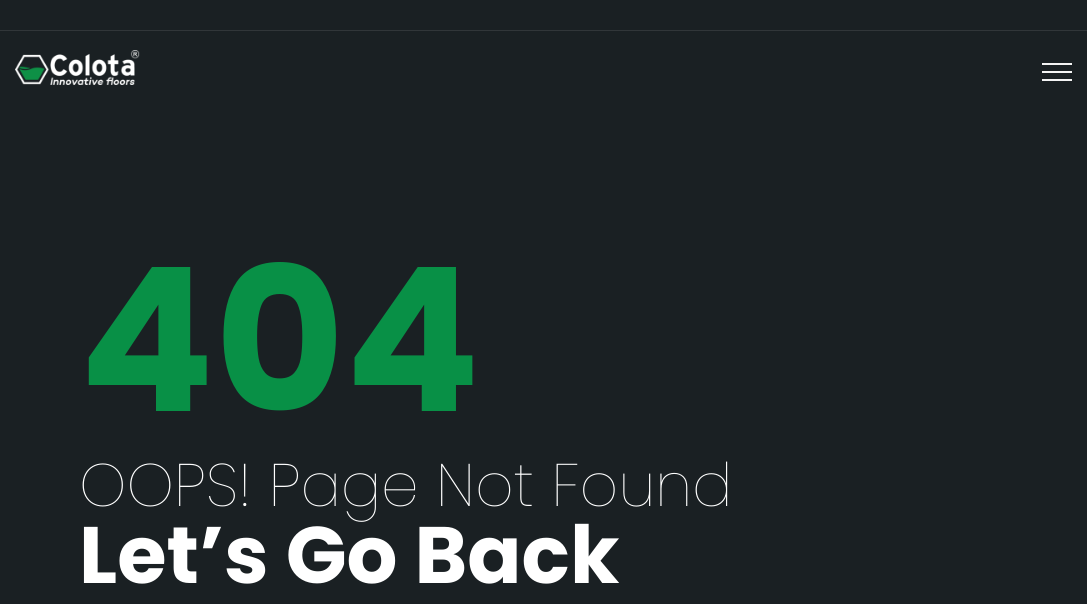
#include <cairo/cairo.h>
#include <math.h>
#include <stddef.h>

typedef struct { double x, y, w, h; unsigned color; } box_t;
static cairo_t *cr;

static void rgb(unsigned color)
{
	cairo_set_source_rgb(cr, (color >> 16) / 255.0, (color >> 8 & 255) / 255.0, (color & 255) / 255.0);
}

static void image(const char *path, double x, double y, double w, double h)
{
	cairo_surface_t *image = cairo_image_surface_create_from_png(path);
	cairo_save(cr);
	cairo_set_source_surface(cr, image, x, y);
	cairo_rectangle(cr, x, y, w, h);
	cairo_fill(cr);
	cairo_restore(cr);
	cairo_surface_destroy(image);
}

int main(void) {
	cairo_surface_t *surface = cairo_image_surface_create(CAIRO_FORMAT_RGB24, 1087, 604);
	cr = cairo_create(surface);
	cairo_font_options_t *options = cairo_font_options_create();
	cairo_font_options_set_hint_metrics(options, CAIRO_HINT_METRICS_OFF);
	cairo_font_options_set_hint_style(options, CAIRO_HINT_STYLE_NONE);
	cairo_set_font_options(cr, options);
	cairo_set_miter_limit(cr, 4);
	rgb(0x1a2023);
	cairo_paint(cr);
	rgb(0x313639);
	cairo_rectangle(cr, 0, 30, 1087, 1);
	cairo_fill(cr);
	image("img/1.png", 15, 50, 125, 35);
	{
		static const box_t items[] = {
			{1042, 63, 30, 2, 0xf4f4f4},
			{1042, 79, 30, 2, 0xf4f4f4},
			{1042, 71, 30, 2, 0xf4f4f4},
		};
		for (size_t i = 0; i < sizeof items / sizeof *items; i++) {
			rgb(items[i].color);
			cairo_rectangle(cr, items[i].x, items[i].y, items[i].w, items[i].h);
			cairo_fill(cr);
		}
	}
	cairo_select_font_face(cr, "Poppins", CAIRO_FONT_SLANT_NORMAL, CAIRO_FONT_WEIGHT_BOLD);
	cairo_set_font_size(cr, 200);
	rgb(0x089046);
	cairo_move_to(cr, 79, 411);
	cairo_show_text(cr, "404");
	cairo_select_font_face(cr, "Poppins Thin", CAIRO_FONT_SLANT_NORMAL, CAIRO_FONT_WEIGHT_NORMAL);
	cairo_set_font_size(cr, 60);
	rgb(0xffffff);
	cairo_move_to(cr, 79, 506);
	cairo_show_text(cr, "OOPS! Page Not Found");
	cairo_select_font_face(cr, "Poppins", CAIRO_FONT_SLANT_NORMAL, CAIRO_FONT_WEIGHT_BOLD);
	cairo_set_font_size(cr, 80);
	cairo_move_to(cr, 79, 583);
	cairo_show_text(cr, "Let’s Go Back");
	cairo_surface_write_to_png(surface, "page.png");
	cairo_font_options_destroy(options);
	cairo_destroy(cr);
	cairo_surface_destroy(surface);
	return 0;
}
